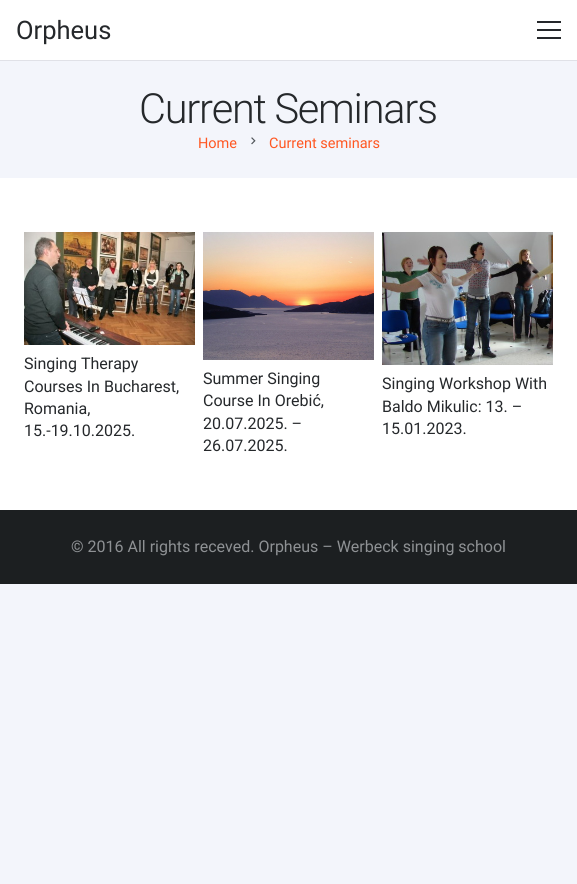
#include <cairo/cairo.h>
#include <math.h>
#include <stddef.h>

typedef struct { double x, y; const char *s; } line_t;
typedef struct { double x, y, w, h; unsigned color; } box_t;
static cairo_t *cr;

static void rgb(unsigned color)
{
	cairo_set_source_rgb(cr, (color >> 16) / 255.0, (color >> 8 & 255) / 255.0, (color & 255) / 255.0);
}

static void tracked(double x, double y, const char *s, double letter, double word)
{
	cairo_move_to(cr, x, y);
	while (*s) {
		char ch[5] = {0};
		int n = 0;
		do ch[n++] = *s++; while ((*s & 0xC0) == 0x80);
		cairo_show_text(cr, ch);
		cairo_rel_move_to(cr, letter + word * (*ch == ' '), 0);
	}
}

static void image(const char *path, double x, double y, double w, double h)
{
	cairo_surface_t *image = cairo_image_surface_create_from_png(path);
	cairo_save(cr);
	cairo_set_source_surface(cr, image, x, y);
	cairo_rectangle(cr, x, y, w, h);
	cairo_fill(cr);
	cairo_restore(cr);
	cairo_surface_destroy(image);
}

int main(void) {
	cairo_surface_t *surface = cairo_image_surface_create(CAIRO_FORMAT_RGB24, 577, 884);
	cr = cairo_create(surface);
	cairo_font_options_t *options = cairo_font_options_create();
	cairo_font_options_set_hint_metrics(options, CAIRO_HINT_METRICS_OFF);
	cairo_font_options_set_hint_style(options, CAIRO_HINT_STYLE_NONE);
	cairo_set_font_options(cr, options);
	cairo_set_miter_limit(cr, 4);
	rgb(0xf3f5fb);
	cairo_paint(cr);
	{
		static const box_t items[] = {
			{0, 178, 577, 332, 0xffffff},
			{0, 60, 577, 1, 0xe0e1e7},
			{0, 0, 577, 60, 0xffffff},
			{537, 29, 24, 2, 0x25282b},
			{537, 21, 24, 2, 0x25282b},
			{537, 37, 24, 2, 0x25282b},
		};
		for (size_t i = 0; i < sizeof items / sizeof *items; i++) {
			rgb(items[i].color);
			cairo_rectangle(cr, items[i].x, items[i].y, items[i].w, items[i].h);
			cairo_fill(cr);
		}
	}
	image("img/1.png", 251, 137, 5, 8);
	image("img/2.png", 24, 232, 171, 113);
	image("img/3.png", 203, 232, 171, 128);
	image("img/4.png", 382, 232, 171, 133);
	rgb(0x1c1f21);
	cairo_rectangle(cr, 0, 510, 577, 74);
	cairo_fill(cr);
	cairo_select_font_face(cr, "Roboto", CAIRO_FONT_SLANT_NORMAL, CAIRO_FONT_WEIGHT_NORMAL);
	cairo_set_font_size(cr, 25.5);
	rgb(0x25282b);
	cairo_move_to(cr, 16, 39);
	cairo_show_text(cr, "Orpheus");
	cairo_select_font_face(cr, "Roboto Light", CAIRO_FONT_SLANT_NORMAL, CAIRO_FONT_WEIGHT_NORMAL);
	cairo_set_font_size(cr, 41.5);
	tracked(139, 123, "Current Seminars", -1.25, 0);
	cairo_select_font_face(cr, "Roboto", CAIRO_FONT_SLANT_NORMAL, CAIRO_FONT_WEIGHT_NORMAL);
	cairo_set_font_size(cr, 14.5);
	rgb(0xff5722);
	cairo_move_to(cr, 198, 148);
	cairo_show_text(cr, "Home");
	cairo_move_to(cr, 269, 148);
	cairo_show_text(cr, "Current seminars");
	cairo_set_font_size(cr, 16);
	rgb(0x25282b);
	{
		static const line_t items[] = {
			{24, 369, "Singing Therapy"},
			{24, 392, "Courses In Bucharest,"},
			{24, 414, "Romania,"},
			{24, 436, "15.-19.10.2025."},
			{203, 384, "Summer Singing"},
			{203, 406, "Course In Orebić,"},
			{203, 429, "20.07.2025. –"},
			{203, 451, "26.07.2025."},
			{382, 389, "Singing Workshop With"},
			{382, 412, "Baldo Mikulic: 13. –"},
			{382, 434, "15.01.2023."},
		};
		for (size_t i = 0; i < sizeof items / sizeof *items; i++) {
			cairo_move_to(cr, items[i].x, items[i].y);
			cairo_show_text(cr, items[i].s);
		}
	}
	rgb(0x8e9194);
	cairo_move_to(cr, 71, 552);
	cairo_show_text(cr, "© 2016 All rights receved. Orpheus – Werbeck singing school");
	cairo_surface_write_to_png(surface, "page.png");
	cairo_font_options_destroy(options);
	cairo_destroy(cr);
	cairo_surface_destroy(surface);
	return 0;
}
